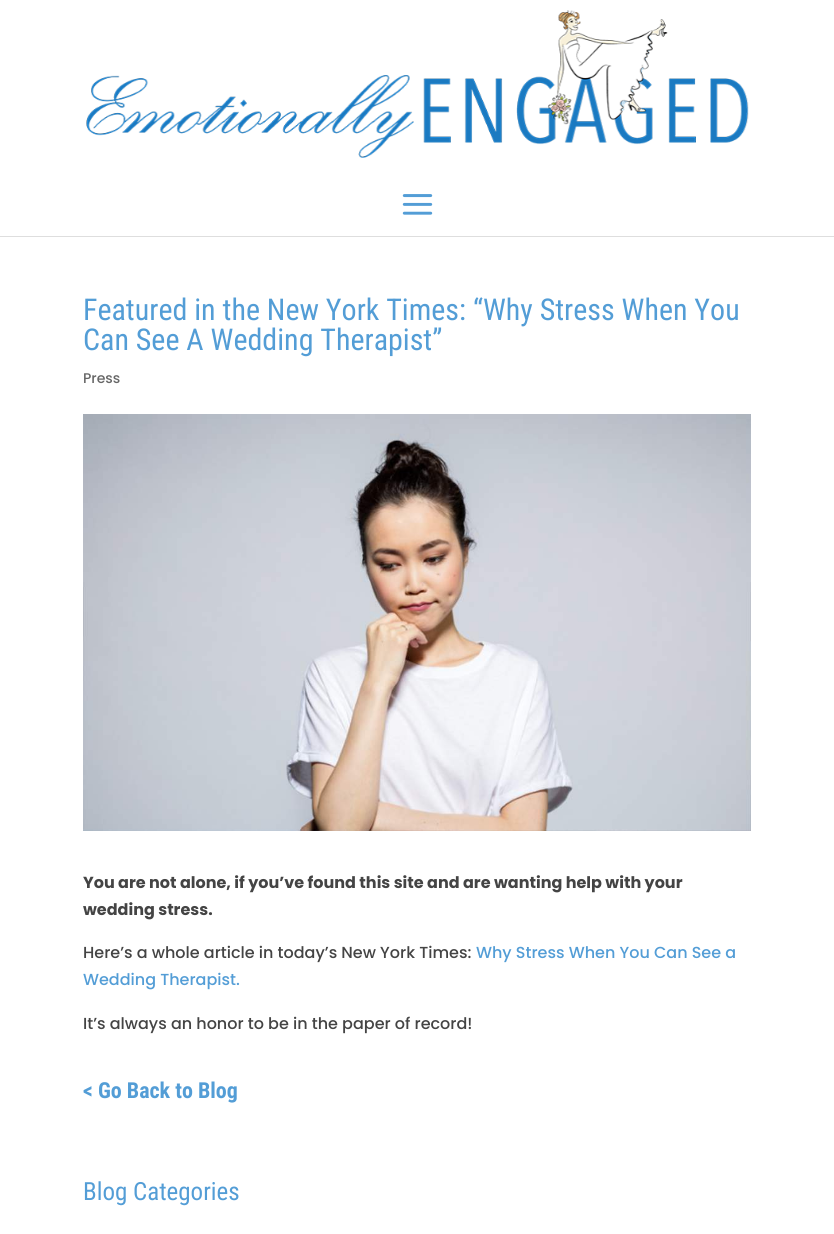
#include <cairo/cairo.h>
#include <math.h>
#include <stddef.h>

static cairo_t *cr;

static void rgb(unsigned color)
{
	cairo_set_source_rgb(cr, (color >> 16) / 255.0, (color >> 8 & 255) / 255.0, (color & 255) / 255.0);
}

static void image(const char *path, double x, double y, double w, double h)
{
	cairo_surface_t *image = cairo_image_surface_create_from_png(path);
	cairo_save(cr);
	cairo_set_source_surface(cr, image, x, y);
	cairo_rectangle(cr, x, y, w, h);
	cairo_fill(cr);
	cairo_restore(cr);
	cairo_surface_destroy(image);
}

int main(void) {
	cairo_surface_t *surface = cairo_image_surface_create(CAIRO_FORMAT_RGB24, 834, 1234);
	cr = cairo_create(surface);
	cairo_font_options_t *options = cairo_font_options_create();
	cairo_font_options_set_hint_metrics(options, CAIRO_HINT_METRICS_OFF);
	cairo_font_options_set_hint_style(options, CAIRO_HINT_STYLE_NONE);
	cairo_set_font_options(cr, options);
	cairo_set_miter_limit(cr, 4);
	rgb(0xffffff);
	cairo_paint(cr);
	rgb(0xdedede);
	cairo_rectangle(cr, 0, 236, 834, 1);
	cairo_fill(cr);
	image("img/1.png", 86, 10, 663, 148);
	image("img/2.png", 402, 194, 31, 21);
	image("img/3.png", 83, 414, 668, 417);
	cairo_select_font_face(cr, "Roboto Condensed", CAIRO_FONT_SLANT_NORMAL, CAIRO_FONT_WEIGHT_NORMAL);
	cairo_set_font_size(cr, 30);
	rgb(0x539dd6);
	cairo_move_to(cr, 83, 320);
	cairo_show_text(cr, "Featured in the New York Times: “Why Stress When You");
	cairo_move_to(cr, 83, 350);
	cairo_show_text(cr, "Can See A Wedding Therapist”");
	cairo_select_font_face(cr, "Poppins Medium", CAIRO_FONT_SLANT_NORMAL, CAIRO_FONT_WEIGHT_NORMAL);
	cairo_set_font_size(cr, 14);
	rgb(0x666666);
	cairo_move_to(cr, 83, 383);
	cairo_show_text(cr, "Press");
	cairo_select_font_face(cr, "Poppins", CAIRO_FONT_SLANT_NORMAL, CAIRO_FONT_WEIGHT_BOLD);
	cairo_set_font_size(cr, 16);
	rgb(0x444444);
	cairo_move_to(cr, 83, 888);
	cairo_show_text(cr, "You are not alone, if you’ve found this site and are wanting help with your");
	cairo_move_to(cr, 83, 915);
	cairo_show_text(cr, "wedding stress.");
	cairo_select_font_face(cr, "Poppins Medium", CAIRO_FONT_SLANT_NORMAL, CAIRO_FONT_WEIGHT_NORMAL);
	cairo_move_to(cr, 83, 958);
	cairo_show_text(cr, "Here’s a whole article in today’s New York Times:");
	rgb(0x539dd6);
	cairo_move_to(cr, 476, 958);
	cairo_show_text(cr, "Why Stress When You Can See a");
	cairo_move_to(cr, 83, 985);
	cairo_show_text(cr, "Wedding Therapist.");
	rgb(0x444444);
	cairo_move_to(cr, 83, 1029);
	cairo_show_text(cr, "It’s always an honor to be in the paper of record!");
	cairo_select_font_face(cr, "Roboto Condensed", CAIRO_FONT_SLANT_NORMAL, CAIRO_FONT_WEIGHT_BOLD);
	cairo_set_font_size(cr, 22);
	rgb(0x539dd6);
	cairo_move_to(cr, 83, 1098);
	cairo_show_text(cr, "< Go Back to Blog");
	cairo_select_font_face(cr, "Roboto Condensed", CAIRO_FONT_SLANT_NORMAL, CAIRO_FONT_WEIGHT_NORMAL);
	cairo_set_font_size(cr, 25);
	cairo_move_to(cr, 83, 1200);
	cairo_show_text(cr, "Blog Categories");
	cairo_surface_write_to_png(surface, "page.png");
	cairo_font_options_destroy(options);
	cairo_destroy(cr);
	cairo_surface_destroy(surface);
	return 0;
}
